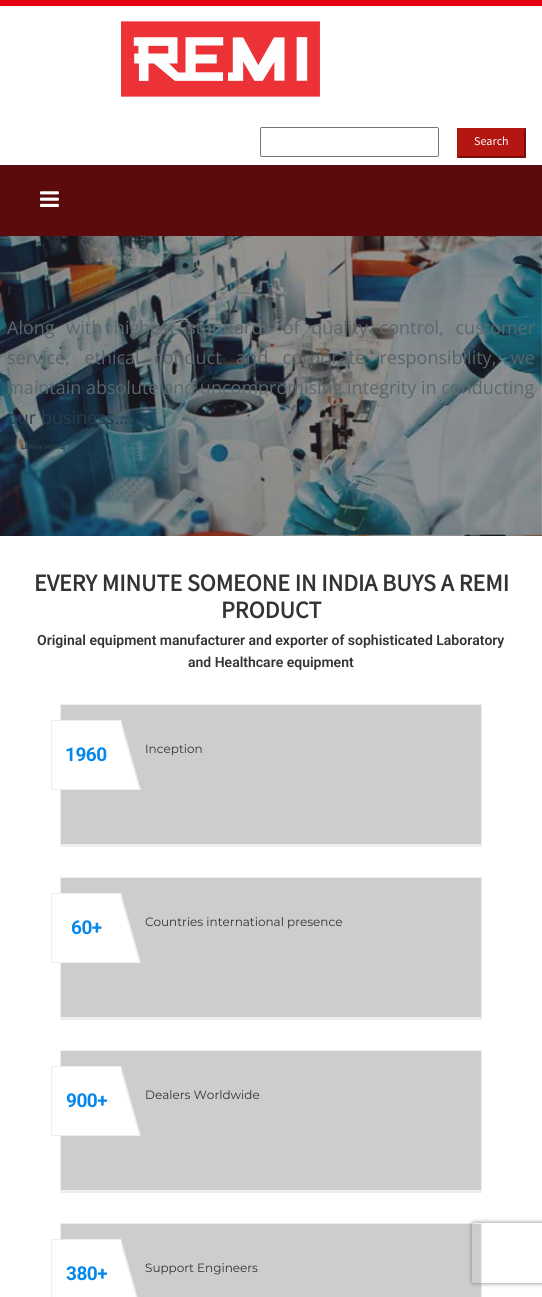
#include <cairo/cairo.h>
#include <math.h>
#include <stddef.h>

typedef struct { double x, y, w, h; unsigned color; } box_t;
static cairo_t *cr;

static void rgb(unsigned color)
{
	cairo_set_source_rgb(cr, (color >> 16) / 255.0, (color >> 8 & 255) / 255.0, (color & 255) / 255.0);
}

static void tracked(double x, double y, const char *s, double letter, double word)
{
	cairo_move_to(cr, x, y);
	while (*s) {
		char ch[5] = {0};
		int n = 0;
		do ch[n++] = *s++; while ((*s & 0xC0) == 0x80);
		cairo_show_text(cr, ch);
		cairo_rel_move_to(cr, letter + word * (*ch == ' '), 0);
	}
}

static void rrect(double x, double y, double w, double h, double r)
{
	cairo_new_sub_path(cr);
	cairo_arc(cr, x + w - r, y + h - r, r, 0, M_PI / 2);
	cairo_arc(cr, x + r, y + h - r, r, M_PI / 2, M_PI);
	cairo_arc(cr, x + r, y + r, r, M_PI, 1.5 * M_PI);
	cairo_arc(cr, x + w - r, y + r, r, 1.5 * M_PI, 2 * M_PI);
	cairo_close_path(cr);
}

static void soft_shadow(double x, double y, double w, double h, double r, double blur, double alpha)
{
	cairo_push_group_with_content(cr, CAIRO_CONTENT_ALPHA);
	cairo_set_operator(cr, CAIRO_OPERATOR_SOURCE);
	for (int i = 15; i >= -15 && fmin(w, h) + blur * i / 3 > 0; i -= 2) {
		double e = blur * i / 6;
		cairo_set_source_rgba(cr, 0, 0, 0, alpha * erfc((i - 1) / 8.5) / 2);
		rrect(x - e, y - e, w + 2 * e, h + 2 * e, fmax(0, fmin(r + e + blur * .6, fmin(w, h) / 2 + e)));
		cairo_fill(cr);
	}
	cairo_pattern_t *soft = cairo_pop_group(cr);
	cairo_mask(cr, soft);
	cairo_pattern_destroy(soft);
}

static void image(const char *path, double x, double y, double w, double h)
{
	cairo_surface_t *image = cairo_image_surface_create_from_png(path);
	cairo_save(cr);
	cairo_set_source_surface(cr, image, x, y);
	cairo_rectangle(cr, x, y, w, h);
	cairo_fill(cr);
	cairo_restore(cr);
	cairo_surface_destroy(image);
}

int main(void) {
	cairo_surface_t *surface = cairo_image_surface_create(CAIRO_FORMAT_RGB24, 542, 1297);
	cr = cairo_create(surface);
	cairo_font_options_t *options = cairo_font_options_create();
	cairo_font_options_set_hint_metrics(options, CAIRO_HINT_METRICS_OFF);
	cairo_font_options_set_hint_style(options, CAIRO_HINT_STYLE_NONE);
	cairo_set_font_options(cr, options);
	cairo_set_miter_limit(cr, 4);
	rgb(0xffffff);
	cairo_paint(cr);
	rgb(0xe3010f);
	cairo_rectangle(cr, 0, 0, 542, 6);
	cairo_fill(cr);
	image("img/1.png", 121, 21, 199, 76);
	rrect(260.5, 127.5, 178, 29, 1.5);
	rgb(0x767676);
	cairo_set_line_width(cr, 1);
	cairo_stroke(cr);
	rgb(0xb41711);
	cairo_rectangle(cr, 457, 128, 69, 30);
	cairo_fill(cr);
	rgb(0x780f0b);
	cairo_new_path(cr);
	cairo_move_to(cr, 526, 128);
	cairo_line_to(cr, 526, 158);
	cairo_line_to(cr, 524, 156);
	cairo_line_to(cr, 524, 130);
	cairo_close_path(cr);
	cairo_fill(cr);
	cairo_new_path(cr);
	cairo_move_to(cr, 526, 158);
	cairo_line_to(cr, 457, 158);
	cairo_line_to(cr, 459, 156);
	cairo_line_to(cr, 524, 156);
	cairo_close_path(cr);
	cairo_fill(cr);
	rgb(0xb41711);
	cairo_new_path(cr);
	cairo_move_to(cr, 457, 158);
	cairo_line_to(cr, 457, 128);
	cairo_line_to(cr, 459, 130);
	cairo_line_to(cr, 459, 156);
	cairo_close_path(cr);
	cairo_fill(cr);
	rgb(0x5b0b0c);
	cairo_rectangle(cr, 0, 165, 542, 71);
	cairo_fill(cr);
	image("img/2.png", 40, 191, 19, 16);
	image("img/3.png", 0, 236, 542, 300);
	{
		static const box_t items[] = {
			{61, 705, 420, 139, 0xcdcdcd},
			{60, 704, 422, 1, 0xeeeeee},
			{481, 704, 1, 143, 0xeeeeee},
			{60, 844, 422, 3, 0xeeeeee},
			{60, 704, 1, 143, 0xeeeeee},
			{60, 721, 61, 68, 0xffffff},
			{51, 720, 70, 1, 0xeeeeee},
			{51, 789, 70, 1, 0xeeeeee},
			{51, 720, 1, 70, 0xeeeeee},
		};
		for (size_t i = 0; i < sizeof items / sizeof *items; i++) {
			rgb(items[i].color);
			cairo_rectangle(cr, items[i].x, items[i].y, items[i].w, items[i].h);
			cairo_fill(cr);
		}
	}
	cairo_new_path(cr);
	cairo_move_to(cr, 141, 790);
	cairo_line_to(cr, 121, 790);
	cairo_line_to(cr, 121, 720);
	cairo_close_path(cr);
	cairo_fill(cr);
	rgb(0xffffff);
	cairo_new_path(cr);
	cairo_move_to(cr, 139, 789);
	cairo_line_to(cr, 119, 789);
	cairo_line_to(cr, 119, 719);
	cairo_close_path(cr);
	cairo_fill(cr);
	{
		static const box_t items[] = {
			{61, 878, 420, 139, 0xcdcdcd},
			{60, 877, 422, 1, 0xeeeeee},
			{481, 877, 1, 143, 0xeeeeee},
			{60, 1017, 422, 3, 0xeeeeee},
			{60, 877, 1, 143, 0xeeeeee},
			{60, 894, 61, 68, 0xffffff},
			{51, 893, 70, 1, 0xeeeeee},
			{51, 962, 70, 1, 0xeeeeee},
			{51, 893, 1, 70, 0xeeeeee},
		};
		for (size_t i = 0; i < sizeof items / sizeof *items; i++) {
			rgb(items[i].color);
			cairo_rectangle(cr, items[i].x, items[i].y, items[i].w, items[i].h);
			cairo_fill(cr);
		}
	}
	cairo_new_path(cr);
	cairo_move_to(cr, 141, 963);
	cairo_line_to(cr, 121, 963);
	cairo_line_to(cr, 121, 893);
	cairo_close_path(cr);
	cairo_fill(cr);
	rgb(0xffffff);
	cairo_new_path(cr);
	cairo_move_to(cr, 139, 962);
	cairo_line_to(cr, 119, 962);
	cairo_line_to(cr, 119, 892);
	cairo_close_path(cr);
	cairo_fill(cr);
	{
		static const box_t items[] = {
			{61, 1051, 420, 139, 0xcdcdcd},
			{60, 1050, 422, 1, 0xeeeeee},
			{481, 1050, 1, 143, 0xeeeeee},
			{60, 1190, 422, 3, 0xeeeeee},
			{60, 1050, 1, 143, 0xeeeeee},
			{60, 1067, 61, 68, 0xffffff},
			{51, 1066, 70, 1, 0xeeeeee},
			{51, 1135, 70, 1, 0xeeeeee},
			{51, 1066, 1, 70, 0xeeeeee},
		};
		for (size_t i = 0; i < sizeof items / sizeof *items; i++) {
			rgb(items[i].color);
			cairo_rectangle(cr, items[i].x, items[i].y, items[i].w, items[i].h);
			cairo_fill(cr);
		}
	}
	cairo_new_path(cr);
	cairo_move_to(cr, 141, 1136);
	cairo_line_to(cr, 121, 1136);
	cairo_line_to(cr, 121, 1066);
	cairo_close_path(cr);
	cairo_fill(cr);
	rgb(0xffffff);
	cairo_new_path(cr);
	cairo_move_to(cr, 139, 1135);
	cairo_line_to(cr, 119, 1135);
	cairo_line_to(cr, 119, 1065);
	cairo_close_path(cr);
	cairo_fill(cr);
	{
		static const box_t items[] = {
			{61, 1224, 420, 73, 0xcdcdcd},
			{60, 1223, 422, 1, 0xeeeeee},
			{481, 1223, 1, 74, 0xeeeeee},
			{60, 1223, 1, 16, 0xeeeeee},
			{61, 1240, 60, 57, 0xffffff},
			{51, 1239, 70, 1, 0xeeeeee},
			{51, 1239, 1, 58, 0xeeeeee},
		};
		for (size_t i = 0; i < sizeof items / sizeof *items; i++) {
			rgb(items[i].color);
			cairo_rectangle(cr, items[i].x, items[i].y, items[i].w, items[i].h);
			cairo_fill(cr);
		}
	}
	cairo_new_path(cr);
	cairo_move_to(cr, 141, 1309);
	cairo_line_to(cr, 121, 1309);
	cairo_line_to(cr, 121, 1239);
	cairo_close_path(cr);
	cairo_fill(cr);
	rgb(0xffffff);
	cairo_new_path(cr);
	cairo_move_to(cr, 139, 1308);
	cairo_line_to(cr, 119, 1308);
	cairo_line_to(cr, 119, 1238);
	cairo_close_path(cr);
	cairo_fill(cr);
	cairo_save(cr);
	cairo_set_fill_rule(cr, CAIRO_FILL_RULE_EVEN_ODD);
	cairo_new_path(cr);
	cairo_move_to(cr, 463, 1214);
	cairo_line_to(cr, 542, 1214);
	cairo_line_to(cr, 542, 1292);
	cairo_line_to(cr, 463, 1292);
	cairo_close_path(cr);
	cairo_move_to(cr, 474, 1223);
	cairo_line_to(cr, 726, 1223);
	cairo_curve_to(cr, 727, 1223, 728, 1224, 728, 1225);
	cairo_line_to(cr, 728, 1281);
	cairo_curve_to(cr, 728, 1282, 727, 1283, 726, 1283);
	cairo_line_to(cr, 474, 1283);
	cairo_curve_to(cr, 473, 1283, 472, 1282, 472, 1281);
	cairo_line_to(cr, 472, 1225);
	cairo_curve_to(cr, 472, 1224, 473, 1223, 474, 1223);
	cairo_close_path(cr);
	cairo_clip(cr);
	rgb(0x808080);
	soft_shadow(472, 1223, 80, 60, 2, 2.5, 1);
	cairo_restore(cr);
	cairo_select_font_face(cr, "Source Sans Pro", CAIRO_FONT_SLANT_NORMAL, CAIRO_FONT_WEIGHT_NORMAL);
	cairo_set_font_size(cr, 12);
	cairo_move_to(cr, 474, 145);
	cairo_show_text(cr, "Search");
	cairo_select_font_face(cr, "Open Sans", CAIRO_FONT_SLANT_NORMAL, CAIRO_FONT_WEIGHT_BOLD);
	cairo_set_font_size(cr, 13);
	rgb(0x222d36);
	cairo_move_to(cr, 7, 295);
	cairo_show_text(cr, "I");
	cairo_select_font_face(cr, "Open Sans", CAIRO_FONT_SLANT_NORMAL, CAIRO_FONT_WEIGHT_NORMAL);
	cairo_set_font_size(cr, 18);
	rgb(0x5a676d);
	tracked(7, 334, "Along with highest standards of quality control, customer", 0, 7);
	rgb(0x596267);
	tracked(7, 364, "service, ethical conduct and corporate responsibility, we", 0, 9.75);
	rgb(0x5a676d);
	cairo_move_to(cr, 7, 394);
	cairo_show_text(cr, "maintain absolute and uncompromising integrity in conducting");
	rgb(0x263d4d);
	cairo_move_to(cr, 7, 424);
	cairo_show_text(cr, "our business...");
	cairo_select_font_face(cr, "Montserrat", CAIRO_FONT_SLANT_NORMAL, CAIRO_FONT_WEIGHT_BOLD);
	cairo_set_font_size(cr, 6);
	cairo_move_to(cr, 21, 449);
	cairo_show_text(cr, "LEARN MORE");
	cairo_select_font_face(cr, "Source Sans Pro", CAIRO_FONT_SLANT_NORMAL, CAIRO_FONT_WEIGHT_BOLD);
	cairo_set_font_size(cr, 24);
	rgb(0x333333);
	cairo_move_to(cr, 34, 591);
	cairo_show_text(cr, "EVERY MINUTE SOMEONE IN INDIA BUYS A REMI");
	cairo_move_to(cr, 221, 618);
	cairo_show_text(cr, "PRODUCT");
	cairo_select_font_face(cr, "Roboto SemiBold", CAIRO_FONT_SLANT_NORMAL, CAIRO_FONT_WEIGHT_NORMAL);
	cairo_set_font_size(cr, 14);
	cairo_move_to(cr, 37, 645);
	cairo_show_text(cr, "Original equipment manufacturer and exporter of sophisticated Laboratory");
	cairo_move_to(cr, 188, 667);
	cairo_show_text(cr, "and Healthcare equipment");
	cairo_select_font_face(cr, "Roboto", CAIRO_FONT_SLANT_NORMAL, CAIRO_FONT_WEIGHT_BOLD);
	cairo_set_font_size(cr, 19);
	rgb(0x0687ea);
	tracked(65, 761, "1960", -0.5, 0);
	cairo_select_font_face(cr, "Montserrat", CAIRO_FONT_SLANT_NORMAL, CAIRO_FONT_WEIGHT_NORMAL);
	cairo_set_font_size(cr, 12);
	rgb(0x333333);
	cairo_move_to(cr, 145, 753);
	cairo_show_text(cr, "Inception");
	cairo_select_font_face(cr, "Roboto", CAIRO_FONT_SLANT_NORMAL, CAIRO_FONT_WEIGHT_BOLD);
	cairo_set_font_size(cr, 19);
	rgb(0x0687ea);
	tracked(71, 934, "60+", -0.5, 0);
	cairo_select_font_face(cr, "Montserrat", CAIRO_FONT_SLANT_NORMAL, CAIRO_FONT_WEIGHT_NORMAL);
	cairo_set_font_size(cr, 12);
	rgb(0x333333);
	cairo_move_to(cr, 145, 926);
	cairo_show_text(cr, "Countries international presence");
	cairo_select_font_face(cr, "Roboto", CAIRO_FONT_SLANT_NORMAL, CAIRO_FONT_WEIGHT_BOLD);
	cairo_set_font_size(cr, 19);
	rgb(0x0687ea);
	tracked(66, 1107, "900+", -0.5, 0);
	cairo_select_font_face(cr, "Montserrat", CAIRO_FONT_SLANT_NORMAL, CAIRO_FONT_WEIGHT_NORMAL);
	cairo_set_font_size(cr, 12);
	rgb(0x333333);
	cairo_move_to(cr, 145, 1099);
	cairo_show_text(cr, "Dealers Worldwide");
	cairo_select_font_face(cr, "Roboto", CAIRO_FONT_SLANT_NORMAL, CAIRO_FONT_WEIGHT_BOLD);
	cairo_set_font_size(cr, 19);
	rgb(0x0687ea);
	tracked(66, 1280, "380+", -0.5, 0);
	cairo_select_font_face(cr, "Montserrat", CAIRO_FONT_SLANT_NORMAL, CAIRO_FONT_WEIGHT_NORMAL);
	cairo_set_font_size(cr, 12);
	rgb(0x333333);
	cairo_move_to(cr, 145, 1272);
	cairo_show_text(cr, "Support Engineers");
	cairo_surface_write_to_png(surface, "page.png");
	cairo_font_options_destroy(options);
	cairo_destroy(cr);
	cairo_surface_destroy(surface);
	return 0;
}
